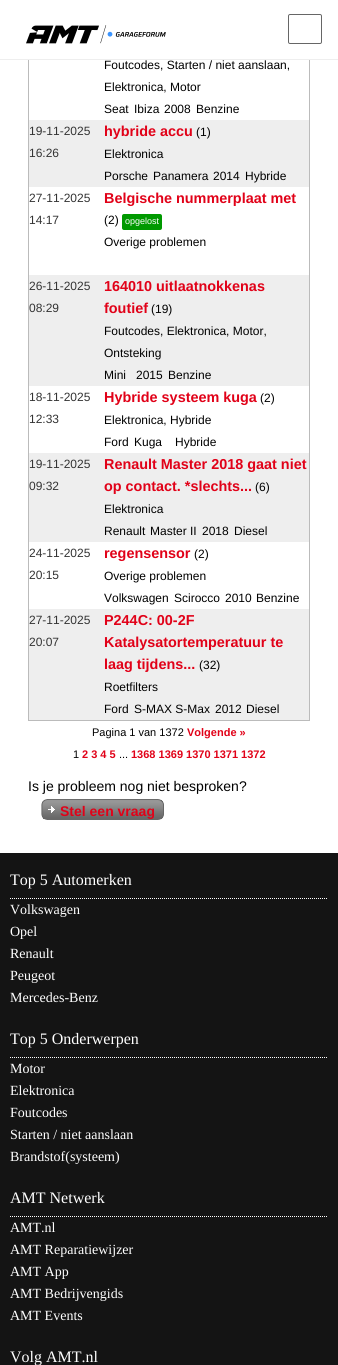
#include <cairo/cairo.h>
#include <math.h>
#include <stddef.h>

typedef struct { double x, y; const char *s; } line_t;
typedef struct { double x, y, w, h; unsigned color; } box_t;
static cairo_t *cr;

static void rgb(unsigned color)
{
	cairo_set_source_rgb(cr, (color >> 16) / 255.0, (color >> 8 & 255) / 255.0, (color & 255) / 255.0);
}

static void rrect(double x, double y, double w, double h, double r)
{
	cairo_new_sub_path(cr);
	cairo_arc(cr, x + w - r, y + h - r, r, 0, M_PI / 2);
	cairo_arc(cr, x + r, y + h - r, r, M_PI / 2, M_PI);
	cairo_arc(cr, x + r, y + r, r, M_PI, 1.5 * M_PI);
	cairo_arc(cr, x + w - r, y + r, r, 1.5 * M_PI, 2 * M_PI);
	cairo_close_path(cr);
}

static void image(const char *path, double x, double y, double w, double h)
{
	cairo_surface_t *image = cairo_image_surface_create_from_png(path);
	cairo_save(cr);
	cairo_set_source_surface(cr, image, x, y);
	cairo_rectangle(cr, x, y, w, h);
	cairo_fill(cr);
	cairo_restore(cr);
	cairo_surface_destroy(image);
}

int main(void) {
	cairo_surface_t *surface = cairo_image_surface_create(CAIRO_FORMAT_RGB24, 338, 1365);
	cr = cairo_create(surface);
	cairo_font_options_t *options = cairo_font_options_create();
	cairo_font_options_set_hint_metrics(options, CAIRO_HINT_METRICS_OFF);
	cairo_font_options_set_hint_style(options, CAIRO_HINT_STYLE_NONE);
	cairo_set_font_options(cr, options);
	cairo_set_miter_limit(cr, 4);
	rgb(0xffffff);
	cairo_paint(cr);
	cairo_rectangle(cr, 28.5, -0.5, 281, 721);
	rgb(0xbbbbbb);
	cairo_set_line_width(cr, 1);
	cairo_stroke(cr);
	rgb(0xffffff);
	cairo_rectangle(cr, 28, 0, 282, 59);
	cairo_fill(cr);
	rgb(0xeeeeee);
	cairo_rectangle(cr, 0, 59, 338, 1);
	cairo_fill(cr);
	image("img/1.png", 26, 25, 140, 19);
	rrect(288.5, 14.5, 33, 29, 1.5);
	rgb(0x666666);
	cairo_stroke(cr);
	rgb(0xeeeeee);
	cairo_rectangle(cr, 29, 120, 280, 67);
	cairo_fill(cr);
	rgb(0x009900);
	rrect(122, 214, 40, 16, 2);
	cairo_fill(cr);
	{
		static const box_t items[] = {
			{29, 275, 280, 111, 0xeeeeee},
			{29, 453, 280, 89, 0xeeeeee},
			{29, 609, 280, 111, 0xeeeeee},
		};
		for (size_t i = 0; i < sizeof items / sizeof *items; i++) {
			rgb(items[i].color);
			cairo_rectangle(cr, items[i].x, items[i].y, items[i].w, items[i].h);
			cairo_fill(cr);
		}
	}
	image("img/2.png", 41, 799, 123, 21);
	rgb(0x141414);
	cairo_rectangle(cr, 0, 853, 338, 512);
	cairo_fill(cr);
	cairo_new_path(cr);
	cairo_move_to(cr, 10, 898.5);
	cairo_line_to(cr, 328, 898.5);
	rgb(0xffffff);
	cairo_set_dash(cr, (double[]){1, 1}, 2, 0);
	cairo_stroke(cr);
	cairo_new_path(cr);
	cairo_move_to(cr, 10, 1057.5);
	cairo_line_to(cr, 328, 1057.5);
	cairo_stroke(cr);
	cairo_new_path(cr);
	cairo_move_to(cr, 10, 1216.5);
	cairo_line_to(cr, 328, 1216.5);
	cairo_stroke(cr);
	cairo_select_font_face(cr, "Liberation Sans", CAIRO_FONT_SLANT_NORMAL, CAIRO_FONT_WEIGHT_NORMAL);
	cairo_set_font_size(cr, 12);
	rgb(0x000000);
	{
		static const line_t items[] = {
			{104, 69, "Foutcodes, Starten / niet aanslaan,"},
			{104, 91, "Elektronica, Motor"},
			{104, 113, "Seat"},
			{134, 113, "Ibiza"},
			{164, 113, "2008"},
			{196, 113, "Benzine"},
		};
		for (size_t i = 0; i < sizeof items / sizeof *items; i++) {
			cairo_move_to(cr, items[i].x, items[i].y);
			cairo_show_text(cr, items[i].s);
		}
	}
	rgb(0x333333);
	cairo_move_to(cr, 29, 135);
	cairo_show_text(cr, "19-11-2025");
	cairo_move_to(cr, 29, 157);
	cairo_show_text(cr, "16:26");
	cairo_select_font_face(cr, "Liberation Sans", CAIRO_FONT_SLANT_NORMAL, CAIRO_FONT_WEIGHT_BOLD);
	cairo_set_font_size(cr, 14.4);
	rgb(0xe10118);
	cairo_move_to(cr, 104, 136);
	cairo_show_text(cr, "hybride accu");
	cairo_select_font_face(cr, "Liberation Sans", CAIRO_FONT_SLANT_NORMAL, CAIRO_FONT_WEIGHT_NORMAL);
	cairo_set_font_size(cr, 12);
	rgb(0x000000);
	{
		static const line_t items[] = {
			{196, 136, "(1)"},
			{104, 158, "Elektronica"},
			{104, 180, "Porsche"},
			{153, 180, "Panamera"},
			{213, 180, "2014"},
			{245, 180, "Hybride"},
		};
		for (size_t i = 0; i < sizeof items / sizeof *items; i++) {
			cairo_move_to(cr, items[i].x, items[i].y);
			cairo_show_text(cr, items[i].s);
		}
	}
	rgb(0x333333);
	cairo_move_to(cr, 29, 202);
	cairo_show_text(cr, "27-11-2025");
	cairo_move_to(cr, 29, 224);
	cairo_show_text(cr, "14:17");
	cairo_select_font_face(cr, "Liberation Sans", CAIRO_FONT_SLANT_NORMAL, CAIRO_FONT_WEIGHT_BOLD);
	cairo_set_font_size(cr, 14.4);
	rgb(0xe10118);
	cairo_move_to(cr, 104, 203);
	cairo_show_text(cr, "Belgische nummerplaat met");
	cairo_select_font_face(cr, "Liberation Sans", CAIRO_FONT_SLANT_NORMAL, CAIRO_FONT_WEIGHT_NORMAL);
	cairo_set_font_size(cr, 12);
	rgb(0x000000);
	cairo_move_to(cr, 104, 224);
	cairo_show_text(cr, "(2)");
	cairo_set_font_size(cr, 9);
	rgb(0xffffff);
	cairo_move_to(cr, 125, 224);
	cairo_show_text(cr, "opgelost");
	cairo_set_font_size(cr, 12);
	rgb(0x000000);
	cairo_move_to(cr, 104, 246);
	cairo_show_text(cr, "Overige problemen");
	rgb(0x333333);
	cairo_move_to(cr, 29, 290);
	cairo_show_text(cr, "26-11-2025");
	cairo_move_to(cr, 29, 312);
	cairo_show_text(cr, "08:29");
	cairo_select_font_face(cr, "Liberation Sans", CAIRO_FONT_SLANT_NORMAL, CAIRO_FONT_WEIGHT_BOLD);
	cairo_set_font_size(cr, 14.4);
	rgb(0xe10118);
	cairo_move_to(cr, 104, 291);
	cairo_show_text(cr, "164010 uitlaatnokkenas");
	cairo_move_to(cr, 104, 313);
	cairo_show_text(cr, "foutief");
	cairo_select_font_face(cr, "Liberation Sans", CAIRO_FONT_SLANT_NORMAL, CAIRO_FONT_WEIGHT_NORMAL);
	cairo_set_font_size(cr, 12);
	rgb(0x000000);
	{
		static const line_t items[] = {
			{151, 313, "(19)"},
			{104, 335, "Foutcodes, Elektronica, Motor,"},
			{104, 357, "Ontsteking"},
			{104, 379, "Mini"},
			{136, 379, "2015"},
			{168, 379, "Benzine"},
		};
		for (size_t i = 0; i < sizeof items / sizeof *items; i++) {
			cairo_move_to(cr, items[i].x, items[i].y);
			cairo_show_text(cr, items[i].s);
		}
	}
	rgb(0x333333);
	cairo_move_to(cr, 29, 401);
	cairo_show_text(cr, "18-11-2025");
	cairo_move_to(cr, 29, 423);
	cairo_show_text(cr, "12:33");
	cairo_select_font_face(cr, "Liberation Sans", CAIRO_FONT_SLANT_NORMAL, CAIRO_FONT_WEIGHT_BOLD);
	cairo_set_font_size(cr, 14.4);
	rgb(0xe10118);
	cairo_move_to(cr, 104, 402);
	cairo_show_text(cr, "Hybride systeem kuga");
	cairo_select_font_face(cr, "Liberation Sans", CAIRO_FONT_SLANT_NORMAL, CAIRO_FONT_WEIGHT_NORMAL);
	cairo_set_font_size(cr, 12);
	rgb(0x000000);
	{
		static const line_t items[] = {
			{260, 402, "(2)"},
			{104, 424, "Elektronica, Hybride"},
			{104, 446, "Ford"},
			{134, 446, "Kuga"},
			{175, 446, "Hybride"},
		};
		for (size_t i = 0; i < sizeof items / sizeof *items; i++) {
			cairo_move_to(cr, items[i].x, items[i].y);
			cairo_show_text(cr, items[i].s);
		}
	}
	rgb(0x333333);
	cairo_move_to(cr, 29, 468);
	cairo_show_text(cr, "19-11-2025");
	cairo_move_to(cr, 29, 490);
	cairo_show_text(cr, "09:32");
	cairo_select_font_face(cr, "Liberation Sans", CAIRO_FONT_SLANT_NORMAL, CAIRO_FONT_WEIGHT_BOLD);
	cairo_set_font_size(cr, 14.4);
	rgb(0xe10118);
	cairo_move_to(cr, 104, 469);
	cairo_show_text(cr, "Renault Master 2018 gaat niet");
	cairo_move_to(cr, 104, 491);
	cairo_show_text(cr, "op contact. *slechts...");
	cairo_select_font_face(cr, "Liberation Sans", CAIRO_FONT_SLANT_NORMAL, CAIRO_FONT_WEIGHT_NORMAL);
	cairo_set_font_size(cr, 12);
	rgb(0x000000);
	{
		static const line_t items[] = {
			{255, 491, "(6)"},
			{104, 513, "Elektronica"},
			{104, 535, "Renault"},
			{150, 535, "Master II"},
			{202, 535, "2018"},
			{234, 535, "Diesel"},
		};
		for (size_t i = 0; i < sizeof items / sizeof *items; i++) {
			cairo_move_to(cr, items[i].x, items[i].y);
			cairo_show_text(cr, items[i].s);
		}
	}
	rgb(0x333333);
	cairo_move_to(cr, 29, 557);
	cairo_show_text(cr, "24-11-2025");
	cairo_move_to(cr, 29, 579);
	cairo_show_text(cr, "20:15");
	cairo_select_font_face(cr, "Liberation Sans", CAIRO_FONT_SLANT_NORMAL, CAIRO_FONT_WEIGHT_BOLD);
	cairo_set_font_size(cr, 14.4);
	rgb(0xe10118);
	cairo_move_to(cr, 104, 558);
	cairo_show_text(cr, "regensensor");
	cairo_select_font_face(cr, "Liberation Sans", CAIRO_FONT_SLANT_NORMAL, CAIRO_FONT_WEIGHT_NORMAL);
	cairo_set_font_size(cr, 12);
	rgb(0x000000);
	{
		static const line_t items[] = {
			{194, 558, "(2)"},
			{104, 580, "Overige problemen"},
			{104, 602, "Volkswagen"},
			{174, 602, "Scirocco"},
			{225, 602, "2010"},
			{256, 602, "Benzine"},
		};
		for (size_t i = 0; i < sizeof items / sizeof *items; i++) {
			cairo_move_to(cr, items[i].x, items[i].y);
			cairo_show_text(cr, items[i].s);
		}
	}
	rgb(0x333333);
	cairo_move_to(cr, 29, 624);
	cairo_show_text(cr, "27-11-2025");
	cairo_move_to(cr, 29, 646);
	cairo_show_text(cr, "20:07");
	cairo_select_font_face(cr, "Liberation Sans", CAIRO_FONT_SLANT_NORMAL, CAIRO_FONT_WEIGHT_BOLD);
	cairo_set_font_size(cr, 14.4);
	rgb(0xe10118);
	{
		static const line_t items[] = {
			{104, 625, "P244C: 00-2F"},
			{104, 647, "Katalysatortemperatuur te"},
			{104, 669, "laag tijdens..."},
		};
		for (size_t i = 0; i < sizeof items / sizeof *items; i++) {
			cairo_move_to(cr, items[i].x, items[i].y);
			cairo_show_text(cr, items[i].s);
		}
	}
	cairo_select_font_face(cr, "Liberation Sans", CAIRO_FONT_SLANT_NORMAL, CAIRO_FONT_WEIGHT_NORMAL);
	cairo_set_font_size(cr, 12);
	rgb(0x000000);
	{
		static const line_t items[] = {
			{199, 669, "(32)"},
			{104, 691, "Roetfilters"},
			{104, 713, "Ford"},
			{134, 713, "S-MAX S-Max"},
			{215, 713, "2012"},
			{246, 713, "Diesel"},
		};
		for (size_t i = 0; i < sizeof items / sizeof *items; i++) {
			cairo_move_to(cr, items[i].x, items[i].y);
			cairo_show_text(cr, items[i].s);
		}
	}
	cairo_set_font_size(cr, 11);
	cairo_move_to(cr, 92, 736);
	cairo_show_text(cr, "Pagina 1 van 1372");
	cairo_select_font_face(cr, "Liberation Sans", CAIRO_FONT_SLANT_NORMAL, CAIRO_FONT_WEIGHT_BOLD);
	rgb(0xe10118);
	cairo_move_to(cr, 187, 736);
	cairo_show_text(cr, "Volgende »");
	cairo_select_font_face(cr, "Liberation Sans", CAIRO_FONT_SLANT_NORMAL, CAIRO_FONT_WEIGHT_NORMAL);
	rgb(0x000000);
	cairo_move_to(cr, 73, 758);
	cairo_show_text(cr, "1");
	cairo_select_font_face(cr, "Liberation Sans", CAIRO_FONT_SLANT_NORMAL, CAIRO_FONT_WEIGHT_BOLD);
	rgb(0xe10118);
	cairo_move_to(cr, 82, 758);
	cairo_show_text(cr, "2 3 4 5");
	cairo_select_font_face(cr, "Liberation Sans", CAIRO_FONT_SLANT_NORMAL, CAIRO_FONT_WEIGHT_NORMAL);
	rgb(0x000000);
	cairo_move_to(cr, 119, 758);
	cairo_show_text(cr, "...");
	cairo_select_font_face(cr, "Liberation Sans", CAIRO_FONT_SLANT_NORMAL, CAIRO_FONT_WEIGHT_BOLD);
	rgb(0xe10118);
	cairo_move_to(cr, 131, 758);
	cairo_show_text(cr, "1368 1369 1370 1371 1372");
	cairo_select_font_face(cr, "Liberation Sans", CAIRO_FONT_SLANT_NORMAL, CAIRO_FONT_WEIGHT_NORMAL);
	cairo_set_font_size(cr, 14);
	rgb(0x000000);
	cairo_move_to(cr, 28, 791);
	cairo_show_text(cr, "Is je probleem nog niet besproken?");
	cairo_select_font_face(cr, "Liberation Sans", CAIRO_FONT_SLANT_NORMAL, CAIRO_FONT_WEIGHT_BOLD);
	rgb(0xe10118);
	cairo_move_to(cr, 60, 816);
	cairo_show_text(cr, "Stel een vraag");
	cairo_select_font_face(cr, "Liberation Serif", CAIRO_FONT_SLANT_NORMAL, CAIRO_FONT_WEIGHT_NORMAL);
	cairo_set_font_size(cr, 16);
	rgb(0xffffff);
	cairo_move_to(cr, 10, 885);
	cairo_show_text(cr, "Top 5 Automerken");
	cairo_set_font_size(cr, 14);
	{
		static const line_t items[] = {
			{10, 914, "Volkswagen"},
			{10, 936, "Opel"},
			{10, 958, "Renault"},
			{10, 980, "Peugeot"},
			{10, 1002, "Mercedes-Benz"},
		};
		for (size_t i = 0; i < sizeof items / sizeof *items; i++) {
			cairo_move_to(cr, items[i].x, items[i].y);
			cairo_show_text(cr, items[i].s);
		}
	}
	cairo_set_font_size(cr, 16);
	cairo_move_to(cr, 10, 1044);
	cairo_show_text(cr, "Top 5 Onderwerpen");
	cairo_set_font_size(cr, 14);
	{
		static const line_t items[] = {
			{10, 1073, "Motor"},
			{10, 1095, "Elektronica"},
			{10, 1117, "Foutcodes"},
			{10, 1139, "Starten / niet aanslaan"},
			{10, 1161, "Brandstof(systeem)"},
		};
		for (size_t i = 0; i < sizeof items / sizeof *items; i++) {
			cairo_move_to(cr, items[i].x, items[i].y);
			cairo_show_text(cr, items[i].s);
		}
	}
	cairo_set_font_size(cr, 16);
	cairo_move_to(cr, 10, 1203);
	cairo_show_text(cr, "AMT Netwerk");
	cairo_set_font_size(cr, 14);
	{
		static const line_t items[] = {
			{10, 1232, "AMT.nl"},
			{10, 1254, "AMT Reparatiewijzer"},
			{10, 1276, "AMT App"},
			{10, 1298, "AMT Bedrijvengids"},
			{10, 1320, "AMT Events"},
		};
		for (size_t i = 0; i < sizeof items / sizeof *items; i++) {
			cairo_move_to(cr, items[i].x, items[i].y);
			cairo_show_text(cr, items[i].s);
		}
	}
	cairo_set_font_size(cr, 16);
	cairo_move_to(cr, 10, 1362);
	cairo_show_text(cr, "Volg AMT.nl");
	cairo_surface_write_to_png(surface, "page.png");
	cairo_font_options_destroy(options);
	cairo_destroy(cr);
	cairo_surface_destroy(surface);
	return 0;
}
